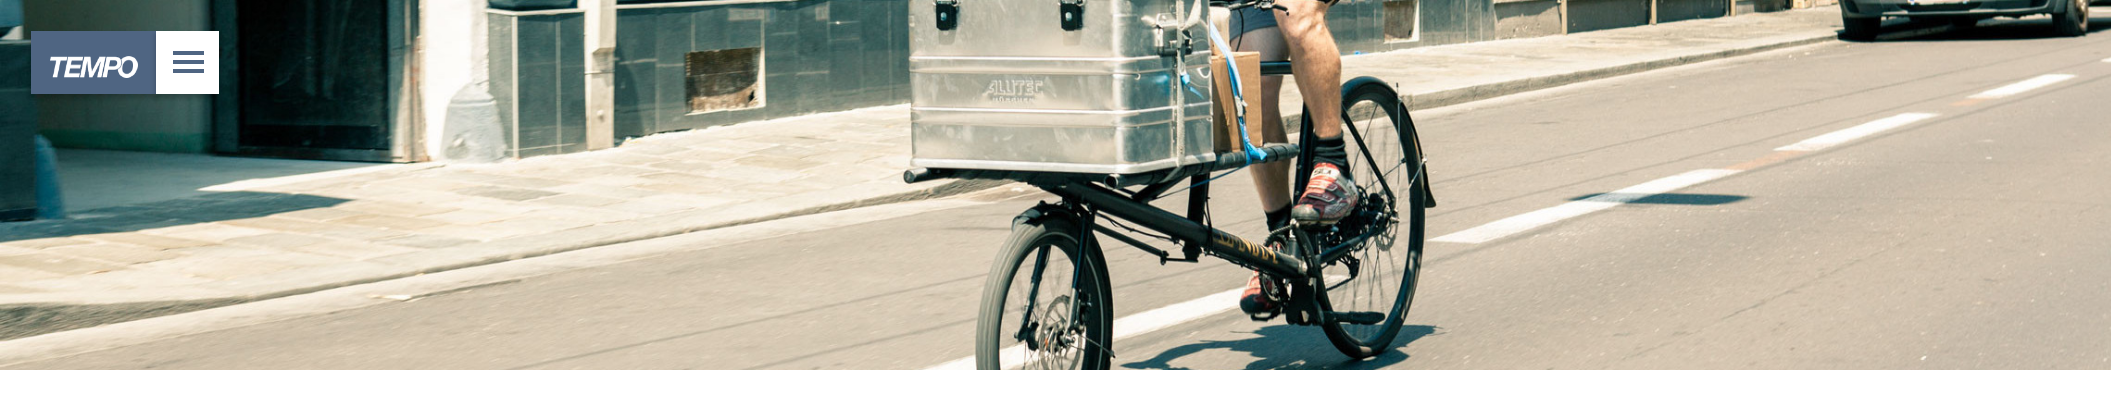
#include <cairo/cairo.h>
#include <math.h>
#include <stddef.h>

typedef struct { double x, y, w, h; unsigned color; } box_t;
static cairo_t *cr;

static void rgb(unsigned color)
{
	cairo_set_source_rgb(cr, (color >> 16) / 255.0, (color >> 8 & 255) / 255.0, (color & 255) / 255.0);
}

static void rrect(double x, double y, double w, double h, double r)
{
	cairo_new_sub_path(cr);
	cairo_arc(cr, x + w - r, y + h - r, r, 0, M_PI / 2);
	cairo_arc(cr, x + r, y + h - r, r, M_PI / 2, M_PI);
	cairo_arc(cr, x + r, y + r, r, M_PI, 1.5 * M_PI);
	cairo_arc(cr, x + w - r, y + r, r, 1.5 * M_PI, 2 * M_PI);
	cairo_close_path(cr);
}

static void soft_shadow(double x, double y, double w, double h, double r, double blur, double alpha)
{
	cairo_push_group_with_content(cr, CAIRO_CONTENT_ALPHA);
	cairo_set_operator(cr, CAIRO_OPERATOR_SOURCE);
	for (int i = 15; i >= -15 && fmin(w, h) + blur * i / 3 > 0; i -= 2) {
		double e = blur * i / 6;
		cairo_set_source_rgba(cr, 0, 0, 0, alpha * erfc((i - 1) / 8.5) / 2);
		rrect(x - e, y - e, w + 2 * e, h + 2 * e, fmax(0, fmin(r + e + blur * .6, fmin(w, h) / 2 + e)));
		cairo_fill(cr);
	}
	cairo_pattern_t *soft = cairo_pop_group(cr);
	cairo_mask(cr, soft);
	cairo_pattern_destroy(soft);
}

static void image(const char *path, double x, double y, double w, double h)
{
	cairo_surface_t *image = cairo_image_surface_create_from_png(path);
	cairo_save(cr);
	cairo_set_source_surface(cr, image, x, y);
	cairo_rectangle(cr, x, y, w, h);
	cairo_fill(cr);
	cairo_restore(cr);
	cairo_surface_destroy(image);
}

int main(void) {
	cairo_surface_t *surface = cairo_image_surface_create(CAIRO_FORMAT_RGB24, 2111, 413);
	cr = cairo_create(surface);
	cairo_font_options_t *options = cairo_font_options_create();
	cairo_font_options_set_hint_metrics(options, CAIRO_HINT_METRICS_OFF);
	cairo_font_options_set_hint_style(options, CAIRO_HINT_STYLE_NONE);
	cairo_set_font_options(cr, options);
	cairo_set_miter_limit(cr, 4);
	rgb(0xffffff);
	cairo_paint(cr);
	image("img/1.png", 0, 0, 2111, 370);
	rgb(0x000000);
	soft_shadow(31, 35, 125, 63, 0, 3, 0.25);
	rgb(0x4f6582);
	cairo_rectangle(cr, 31, 31, 125, 63);
	cairo_fill(cr);
	image("img/2.png", 50, 56, 88, 22);
	rgb(0x000000);
	soft_shadow(156, 35, 63, 63, 0, 3, 0.25);
	{
		static const box_t items[] = {
			{156, 31, 63, 63, 0xffffff},
			{173, 51, 31, 4, 0x4f6582},
			{173, 60, 31, 4, 0x4f6582},
			{173, 69, 31, 4, 0x4f6582},
		};
		for (size_t i = 0; i < sizeof items / sizeof *items; i++) {
			rgb(items[i].color);
			cairo_rectangle(cr, items[i].x, items[i].y, items[i].w, items[i].h);
			cairo_fill(cr);
		}
	}
	cairo_surface_write_to_png(surface, "page.png");
	cairo_font_options_destroy(options);
	cairo_destroy(cr);
	cairo_surface_destroy(surface);
	return 0;
}
